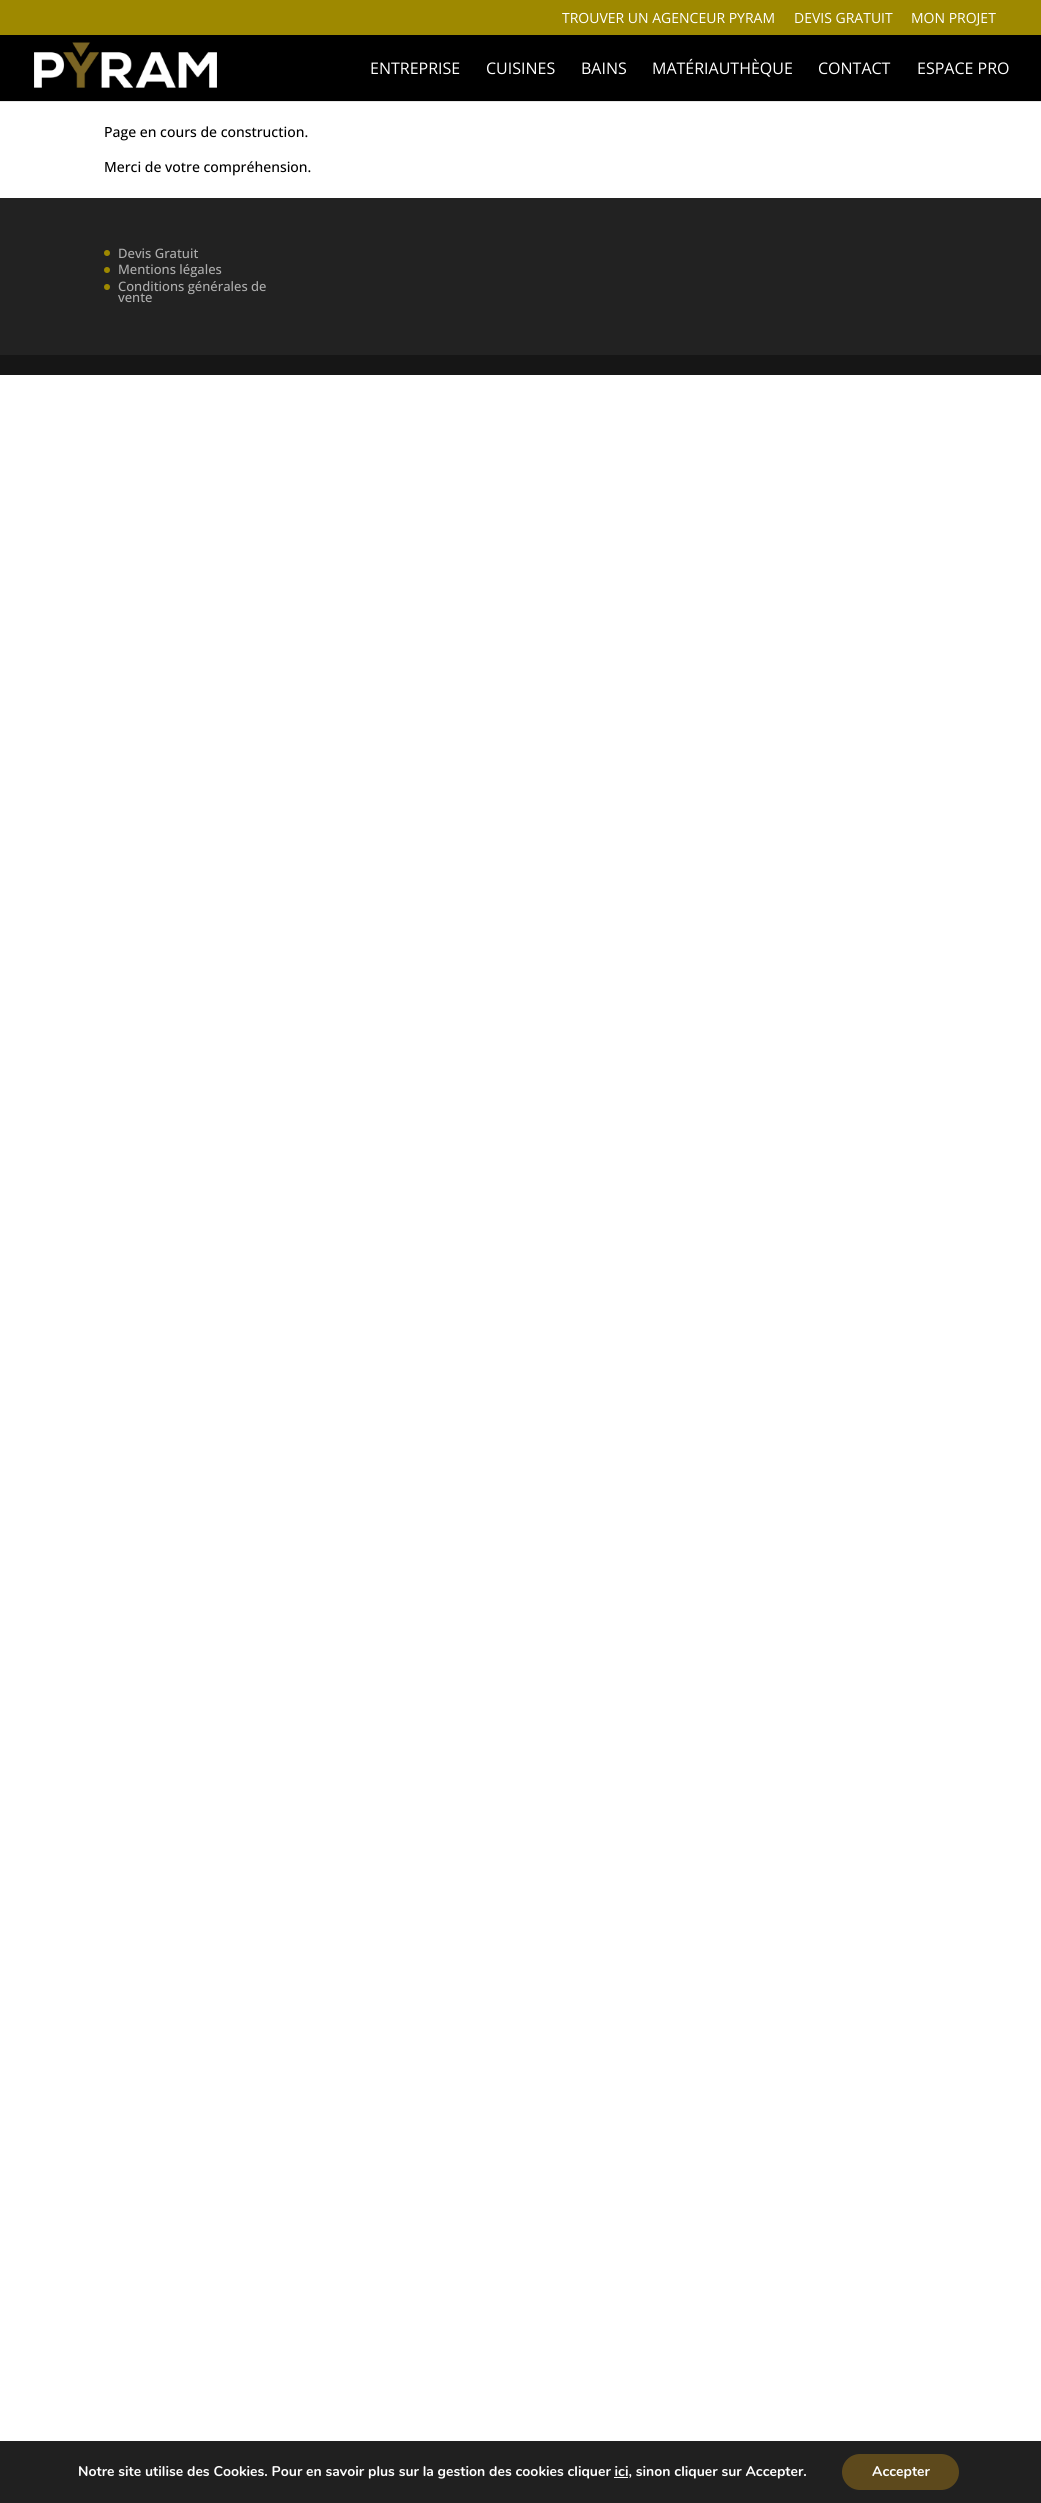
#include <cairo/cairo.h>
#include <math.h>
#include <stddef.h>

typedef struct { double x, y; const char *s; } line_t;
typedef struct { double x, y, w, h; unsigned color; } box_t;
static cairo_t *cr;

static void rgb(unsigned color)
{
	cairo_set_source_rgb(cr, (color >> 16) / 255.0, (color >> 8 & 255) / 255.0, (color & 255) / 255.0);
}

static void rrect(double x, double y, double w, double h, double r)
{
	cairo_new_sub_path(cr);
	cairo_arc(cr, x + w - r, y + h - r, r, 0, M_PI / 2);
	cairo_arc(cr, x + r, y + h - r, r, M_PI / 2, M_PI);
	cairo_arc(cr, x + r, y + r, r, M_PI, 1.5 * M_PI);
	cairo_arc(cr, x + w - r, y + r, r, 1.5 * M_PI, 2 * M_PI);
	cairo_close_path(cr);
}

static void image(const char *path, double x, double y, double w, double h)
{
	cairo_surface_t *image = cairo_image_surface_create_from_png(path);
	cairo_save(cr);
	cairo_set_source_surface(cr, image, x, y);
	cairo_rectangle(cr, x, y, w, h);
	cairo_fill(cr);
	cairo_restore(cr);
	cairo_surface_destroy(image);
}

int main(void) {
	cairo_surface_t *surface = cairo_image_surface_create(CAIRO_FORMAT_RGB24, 1041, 2503);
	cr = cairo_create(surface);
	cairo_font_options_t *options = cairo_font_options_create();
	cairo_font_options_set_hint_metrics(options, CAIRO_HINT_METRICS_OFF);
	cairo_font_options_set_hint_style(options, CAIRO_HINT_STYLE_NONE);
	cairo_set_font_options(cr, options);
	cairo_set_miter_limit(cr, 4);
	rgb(0xffffff);
	cairo_paint(cr);
	{
		static const box_t items[] = {
			{0, 0, 1041, 35, 0x9e8900},
			{0, 101, 1041, 1, 0xe6e6e6},
			{0, 35, 1041, 66, 0x000000},
		};
		for (size_t i = 0; i < sizeof items / sizeof *items; i++) {
			rgb(items[i].color);
			cairo_rectangle(cr, items[i].x, items[i].y, items[i].w, items[i].h);
			cairo_fill(cr);
		}
	}
	image("img/1.png", 34, 42, 183, 46);
	rgb(0x222222);
	cairo_rectangle(cr, 0, 198, 1041, 157);
	cairo_fill(cr);
	rgb(0x9e8900);
	cairo_arc(cr, 107, 253, 3, 0, 2 * M_PI);
	cairo_fill(cr);
	cairo_arc(cr, 107, 270, 3, 0, 2 * M_PI);
	cairo_fill(cr);
	cairo_arc(cr, 107, 287, 3, 0, 2 * M_PI);
	cairo_fill(cr);
	{
		static const box_t items[] = {
			{0, 355, 1041, 20, 0x161616},
			{0, 2441, 1041, 62, 0x202020},
			{614, 2477, 14, 1, 0xffffff},
		};
		for (size_t i = 0; i < sizeof items / sizeof *items; i++) {
			rgb(items[i].color);
			cairo_rectangle(cr, items[i].x, items[i].y, items[i].w, items[i].h);
			cairo_fill(cr);
		}
	}
	rgb(0x5d491c);
	rrect(842, 2454, 117, 36, 18);
	cairo_fill(cr);
	cairo_select_font_face(cr, "Open Sans", CAIRO_FONT_SLANT_NORMAL, CAIRO_FONT_WEIGHT_NORMAL);
	cairo_set_font_size(cr, 14);
	rgb(0xffffff);
	{
		static const line_t items[] = {
			{562, 23, "TROUVER UN AGENCEUR PYRAM"},
			{794, 23, "DEVIS GRATUIT"},
			{911, 23, "MON PROJET"},
		};
		for (size_t i = 0; i < sizeof items / sizeof *items; i++) {
			cairo_move_to(cr, items[i].x, items[i].y);
			cairo_show_text(cr, items[i].s);
		}
	}
	cairo_set_font_size(cr, 16);
	{
		static const line_t items[] = {
			{370, 74, "ENTREPRISE"},
			{486, 74, "CUISINES"},
			{581, 74, "BAINS"},
			{652, 74, "MATÉRIAUTHÈQUE"},
			{818, 74, "CONTACT"},
			{917, 74, "ESPACE PRO"},
		};
		for (size_t i = 0; i < sizeof items / sizeof *items; i++) {
			cairo_move_to(cr, items[i].x, items[i].y);
			cairo_show_text(cr, items[i].s);
		}
	}
	cairo_select_font_face(cr, "Open Sans Medium", CAIRO_FONT_SLANT_NORMAL, CAIRO_FONT_WEIGHT_NORMAL);
	cairo_set_font_size(cr, 14);
	rgb(0x000000);
	cairo_move_to(cr, 104, 137);
	cairo_show_text(cr, "Page en cours de construction.");
	cairo_move_to(cr, 104, 172);
	cairo_show_text(cr, "Merci de votre compréhension.");
	cairo_set_font_size(cr, 13);
	rgb(0xadadad);
	{
		static const line_t items[] = {
			{118, 258, "Devis Gratuit"},
			{118, 274, "Mentions légales"},
			{118, 291, "Conditions générales de"},
			{118, 302, "vente"},
		};
		for (size_t i = 0; i < sizeof items / sizeof *items; i++) {
			cairo_move_to(cr, items[i].x, items[i].y);
			cairo_show_text(cr, items[i].s);
		}
	}
	cairo_select_font_face(cr, "Nunito", CAIRO_FONT_SLANT_NORMAL, CAIRO_FONT_WEIGHT_BOLD);
	cairo_set_font_size(cr, 14);
	rgb(0xffffff);
	cairo_move_to(cr, 78, 2476);
	cairo_show_text(cr, "Notre site utilise des Cookies. Pour en savoir plus sur la gestion des cookies cliquer ici, sinon cliquer sur Accepter.");
	cairo_move_to(cr, 872, 2476);
	cairo_show_text(cr, "Accepter");
	cairo_surface_write_to_png(surface, "page.png");
	cairo_font_options_destroy(options);
	cairo_destroy(cr);
	cairo_surface_destroy(surface);
	return 0;
}
